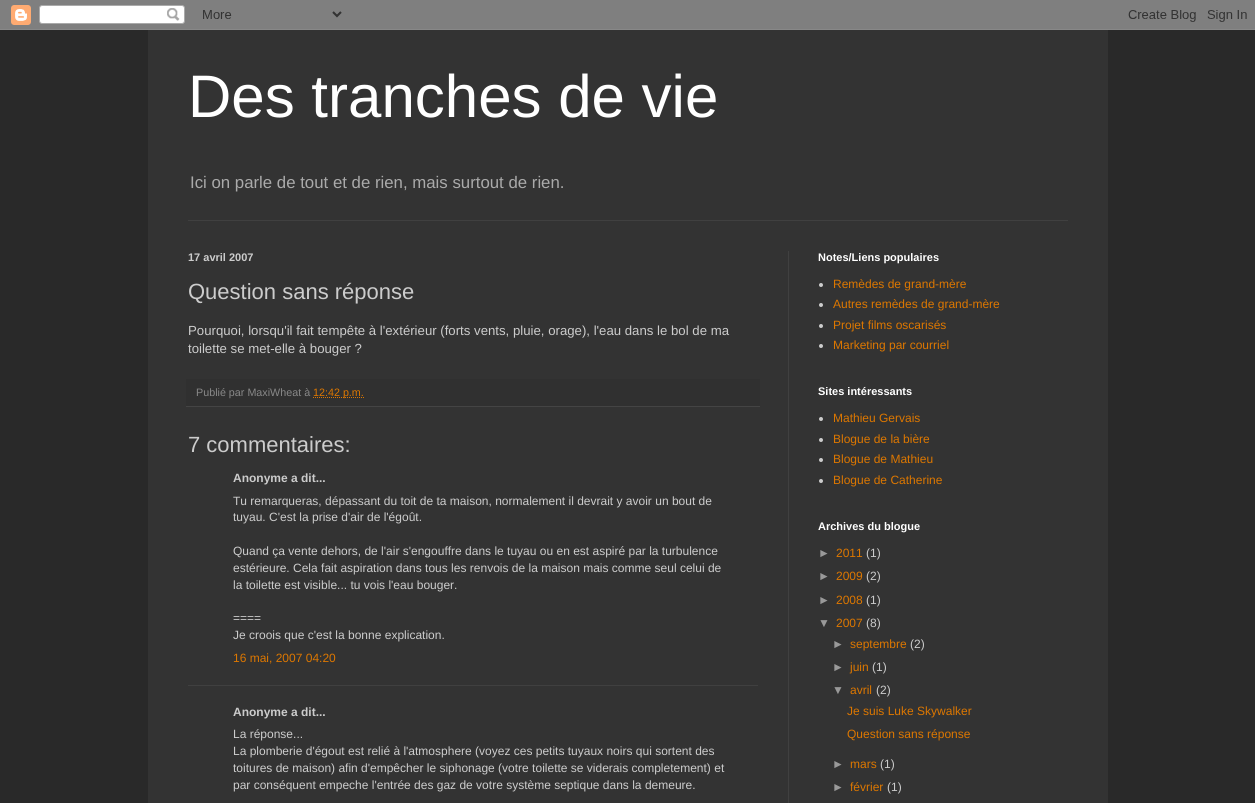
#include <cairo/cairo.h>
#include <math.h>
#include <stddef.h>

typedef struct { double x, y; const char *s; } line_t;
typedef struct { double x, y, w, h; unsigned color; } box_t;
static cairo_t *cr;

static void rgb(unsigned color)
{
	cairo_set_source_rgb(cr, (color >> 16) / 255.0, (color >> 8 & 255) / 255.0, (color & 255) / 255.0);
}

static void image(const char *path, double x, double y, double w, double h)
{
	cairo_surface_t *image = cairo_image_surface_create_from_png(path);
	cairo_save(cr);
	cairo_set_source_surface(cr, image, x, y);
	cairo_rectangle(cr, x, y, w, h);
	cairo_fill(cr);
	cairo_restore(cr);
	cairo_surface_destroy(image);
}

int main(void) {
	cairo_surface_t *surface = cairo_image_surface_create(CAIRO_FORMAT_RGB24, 1255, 803);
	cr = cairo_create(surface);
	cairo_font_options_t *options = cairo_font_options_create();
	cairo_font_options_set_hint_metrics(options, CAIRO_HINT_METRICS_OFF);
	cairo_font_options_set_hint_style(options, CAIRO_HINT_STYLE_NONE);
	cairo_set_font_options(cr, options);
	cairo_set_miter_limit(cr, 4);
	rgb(0x292929);
	cairo_paint(cr);
	image("img/1.png", 0, 0, 1255, 30);
	{
		static const box_t items[] = {
			{148, 30, 960, 773, 0x333333},
			{188, 220, 880, 1, 0x404040},
			{788, 251, 1, 552, 0x404040},
			{186, 379, 574, 27, 0x303030},
			{186, 406, 574, 1, 0x444444},
		};
		for (size_t i = 0; i < sizeof items / sizeof *items; i++) {
			rgb(items[i].color);
			cairo_rectangle(cr, items[i].x, items[i].y, items[i].w, items[i].h);
			cairo_fill(cr);
		}
	}
	cairo_new_path(cr);
	cairo_move_to(cr, 313, 397.5);
	cairo_line_to(cr, 364, 397.5);
	rgb(0xdd7700);
	cairo_set_line_width(cr, 1);
	cairo_set_dash(cr, (double[]){1, 1}, 2, 0);
	cairo_stroke(cr);
	rgb(0x404040);
	cairo_rectangle(cr, 188, 685, 570, 1);
	cairo_fill(cr);
	rgb(0xcccccc);
	cairo_arc(cr, 821, 285, 2, 0, 2 * M_PI);
	cairo_fill(cr);
	cairo_arc(cr, 821, 305, 2, 0, 2 * M_PI);
	cairo_fill(cr);
	cairo_arc(cr, 821, 326, 2, 0, 2 * M_PI);
	cairo_fill(cr);
	cairo_arc(cr, 821, 346, 2, 0, 2 * M_PI);
	cairo_fill(cr);
	cairo_arc(cr, 821, 419, 2, 0, 2 * M_PI);
	cairo_fill(cr);
	cairo_arc(cr, 821, 440, 2, 0, 2 * M_PI);
	cairo_fill(cr);
	cairo_arc(cr, 821, 460, 2, 0, 2 * M_PI);
	cairo_fill(cr);
	cairo_arc(cr, 821, 481, 2, 0, 2 * M_PI);
	cairo_fill(cr);
	cairo_select_font_face(cr, "Liberation Sans", CAIRO_FONT_SLANT_NORMAL, CAIRO_FONT_WEIGHT_NORMAL);
	cairo_set_font_size(cr, 60);
	rgb(0xffffff);
	cairo_move_to(cr, 188, 117);
	cairo_show_text(cr, "Des tranches de vie");
	cairo_set_font_size(cr, 16.8);
	rgb(0xaaaaaa);
	cairo_move_to(cr, 190, 188);
	cairo_show_text(cr, "Ici on parle de tout et de rien, mais surtout de rien.");
	cairo_select_font_face(cr, "Liberation Sans", CAIRO_FONT_SLANT_NORMAL, CAIRO_FONT_WEIGHT_BOLD);
	cairo_set_font_size(cr, 11);
	rgb(0xcccccc);
	cairo_move_to(cr, 188, 261);
	cairo_show_text(cr, "17 avril 2007");
	cairo_select_font_face(cr, "Liberation Sans", CAIRO_FONT_SLANT_NORMAL, CAIRO_FONT_WEIGHT_NORMAL);
	cairo_set_font_size(cr, 22);
	cairo_move_to(cr, 188, 299);
	cairo_show_text(cr, "Question sans réponse");
	cairo_set_font_size(cr, 13.2);
	cairo_move_to(cr, 188, 335);
	cairo_show_text(cr, "Pourquoi, lorsqu'il fait tempête à l'extérieur (forts vents, pluie, orage), l'eau dans le bol de ma");
	cairo_move_to(cr, 188, 353);
	cairo_show_text(cr, "toilette se met-elle à bouger ?");
	cairo_set_font_size(cr, 10.75);
	rgb(0x888888);
	cairo_move_to(cr, 196, 396);
	cairo_show_text(cr, "Publié par MaxiWheat à");
	rgb(0xdd7700);
	cairo_move_to(cr, 313, 396);
	cairo_show_text(cr, "12:42 p.m.");
	cairo_set_font_size(cr, 22);
	rgb(0xcccccc);
	cairo_move_to(cr, 188, 452);
	cairo_show_text(cr, "7 commentaires:");
	cairo_select_font_face(cr, "Liberation Sans", CAIRO_FONT_SLANT_NORMAL, CAIRO_FONT_WEIGHT_BOLD);
	cairo_set_font_size(cr, 12);
	cairo_move_to(cr, 233, 482);
	cairo_show_text(cr, "Anonyme a dit...");
	cairo_select_font_face(cr, "Liberation Sans", CAIRO_FONT_SLANT_NORMAL, CAIRO_FONT_WEIGHT_NORMAL);
	{
		static const line_t items[] = {
			{233, 505, "Tu remarqueras, dépassant du toit de ta maison, normalement il devrait y avoir un bout de"},
			{233, 521, "tuyau. C'est la prise d'air de l'égoût."},
			{233, 555, "Quand ça vente dehors, de l'air s'engouffre dans le tuyau ou en est aspiré par la turbulence"},
			{233, 572, "estérieure. Cela fait aspiration dans tous les renvois de la maison mais comme seul celui de"},
			{233, 589, "la toilette est visible... tu vois l'eau bouger."},
			{233, 622, "===="},
			{233, 639, "Je croois que c'est la bonne explication."},
		};
		for (size_t i = 0; i < sizeof items / sizeof *items; i++) {
			cairo_move_to(cr, items[i].x, items[i].y);
			cairo_show_text(cr, items[i].s);
		}
	}
	rgb(0xdd7700);
	cairo_move_to(cr, 233, 662);
	cairo_show_text(cr, "16 mai, 2007 04:20");
	cairo_select_font_face(cr, "Liberation Sans", CAIRO_FONT_SLANT_NORMAL, CAIRO_FONT_WEIGHT_BOLD);
	rgb(0xcccccc);
	cairo_move_to(cr, 233, 716);
	cairo_show_text(cr, "Anonyme a dit...");
	cairo_select_font_face(cr, "Liberation Sans", CAIRO_FONT_SLANT_NORMAL, CAIRO_FONT_WEIGHT_NORMAL);
	{
		static const line_t items[] = {
			{233, 738, "La réponse..."},
			{233, 755, "La plomberie d'égout est relié à l'atmosphere (voyez ces petits tuyaux noirs qui sortent des"},
			{233, 772, "toitures de maison) afin d'empêcher le siphonage (votre toilette se viderais completement) et"},
			{233, 789, "par conséquent empeche l'entrée des gaz de votre système septique dans la demeure."},
		};
		for (size_t i = 0; i < sizeof items / sizeof *items; i++) {
			cairo_move_to(cr, items[i].x, items[i].y);
			cairo_show_text(cr, items[i].s);
		}
	}
	cairo_select_font_face(cr, "Liberation Sans", CAIRO_FONT_SLANT_NORMAL, CAIRO_FONT_WEIGHT_BOLD);
	cairo_set_font_size(cr, 11);
	rgb(0xffffff);
	cairo_move_to(cr, 818, 261);
	cairo_show_text(cr, "Notes/Liens populaires");
	cairo_select_font_face(cr, "Liberation Sans", CAIRO_FONT_SLANT_NORMAL, CAIRO_FONT_WEIGHT_NORMAL);
	cairo_set_font_size(cr, 12);
	rgb(0xdd7700);
	{
		static const line_t items[] = {
			{833, 288, "Remèdes de grand-mère"},
			{833, 308, "Autres remèdes de grand-mère"},
			{833, 329, "Projet films oscarisés"},
			{833, 349, "Marketing par courriel"},
		};
		for (size_t i = 0; i < sizeof items / sizeof *items; i++) {
			cairo_move_to(cr, items[i].x, items[i].y);
			cairo_show_text(cr, items[i].s);
		}
	}
	cairo_select_font_face(cr, "Liberation Sans", CAIRO_FONT_SLANT_NORMAL, CAIRO_FONT_WEIGHT_BOLD);
	cairo_set_font_size(cr, 11);
	rgb(0xffffff);
	cairo_move_to(cr, 818, 395);
	cairo_show_text(cr, "Sites intéressants");
	cairo_select_font_face(cr, "Liberation Sans", CAIRO_FONT_SLANT_NORMAL, CAIRO_FONT_WEIGHT_NORMAL);
	cairo_set_font_size(cr, 12);
	rgb(0xdd7700);
	{
		static const line_t items[] = {
			{833, 422, "Mathieu Gervais"},
			{833, 443, "Blogue de la bière"},
			{833, 463, "Blogue de Mathieu"},
			{833, 484, "Blogue de Catherine"},
		};
		for (size_t i = 0; i < sizeof items / sizeof *items; i++) {
			cairo_move_to(cr, items[i].x, items[i].y);
			cairo_show_text(cr, items[i].s);
		}
	}
	cairo_select_font_face(cr, "Liberation Sans", CAIRO_FONT_SLANT_NORMAL, CAIRO_FONT_WEIGHT_BOLD);
	cairo_set_font_size(cr, 11);
	rgb(0xffffff);
	cairo_move_to(cr, 818, 530);
	cairo_show_text(cr, "Archives du blogue");
	cairo_select_font_face(cr, "Liberation Sans", CAIRO_FONT_SLANT_NORMAL, CAIRO_FONT_WEIGHT_NORMAL);
	cairo_set_font_size(cr, 12);
	rgb(0x999999);
	cairo_move_to(cr, 818, 557);
	cairo_show_text(cr, "►");
	rgb(0xdd7700);
	cairo_move_to(cr, 836, 557);
	cairo_show_text(cr, "2011");
	rgb(0xcccccc);
	cairo_move_to(cr, 866, 557);
	cairo_show_text(cr, "(1)");
	rgb(0x999999);
	cairo_move_to(cr, 818, 580);
	cairo_show_text(cr, "►");
	rgb(0xdd7700);
	cairo_move_to(cr, 836, 580);
	cairo_show_text(cr, "2009");
	rgb(0xcccccc);
	cairo_move_to(cr, 866, 580);
	cairo_show_text(cr, "(2)");
	rgb(0x999999);
	cairo_move_to(cr, 818, 604);
	cairo_show_text(cr, "►");
	rgb(0xdd7700);
	cairo_move_to(cr, 836, 604);
	cairo_show_text(cr, "2008");
	rgb(0xcccccc);
	cairo_move_to(cr, 866, 604);
	cairo_show_text(cr, "(1)");
	rgb(0x999999);
	cairo_move_to(cr, 818, 627);
	cairo_show_text(cr, "▼");
	rgb(0xdd7700);
	cairo_move_to(cr, 836, 627);
	cairo_show_text(cr, "2007");
	rgb(0xcccccc);
	cairo_move_to(cr, 866, 627);
	cairo_show_text(cr, "(8)");
	rgb(0x999999);
	cairo_move_to(cr, 832, 648);
	cairo_show_text(cr, "►");
	rgb(0xdd7700);
	cairo_move_to(cr, 850, 648);
	cairo_show_text(cr, "septembre");
	rgb(0xcccccc);
	cairo_move_to(cr, 910, 648);
	cairo_show_text(cr, "(2)");
	rgb(0x999999);
	cairo_move_to(cr, 832, 671);
	cairo_show_text(cr, "►");
	rgb(0xdd7700);
	cairo_move_to(cr, 850, 671);
	cairo_show_text(cr, "juin");
	rgb(0xcccccc);
	cairo_move_to(cr, 872, 671);
	cairo_show_text(cr, "(1)");
	rgb(0x999999);
	cairo_move_to(cr, 832, 694);
	cairo_show_text(cr, "▼");
	rgb(0xdd7700);
	cairo_move_to(cr, 850, 694);
	cairo_show_text(cr, "avril");
	rgb(0xcccccc);
	cairo_move_to(cr, 876, 694);
	cairo_show_text(cr, "(2)");
	rgb(0xdd7700);
	cairo_move_to(cr, 847, 715);
	cairo_show_text(cr, "Je suis Luke Skywalker");
	cairo_move_to(cr, 847, 738);
	cairo_show_text(cr, "Question sans réponse");
	rgb(0x999999);
	cairo_move_to(cr, 832, 768);
	cairo_show_text(cr, "►");
	rgb(0xdd7700);
	cairo_move_to(cr, 850, 768);
	cairo_show_text(cr, "mars");
	rgb(0xcccccc);
	cairo_move_to(cr, 880, 768);
	cairo_show_text(cr, "(1)");
	rgb(0x999999);
	cairo_move_to(cr, 832, 791);
	cairo_show_text(cr, "►");
	rgb(0xdd7700);
	cairo_move_to(cr, 850, 791);
	cairo_show_text(cr, "février");
	rgb(0xcccccc);
	cairo_move_to(cr, 887, 791);
	cairo_show_text(cr, "(1)");
	cairo_surface_write_to_png(surface, "page.png");
	cairo_font_options_destroy(options);
	cairo_destroy(cr);
	cairo_surface_destroy(surface);
	return 0;
}
